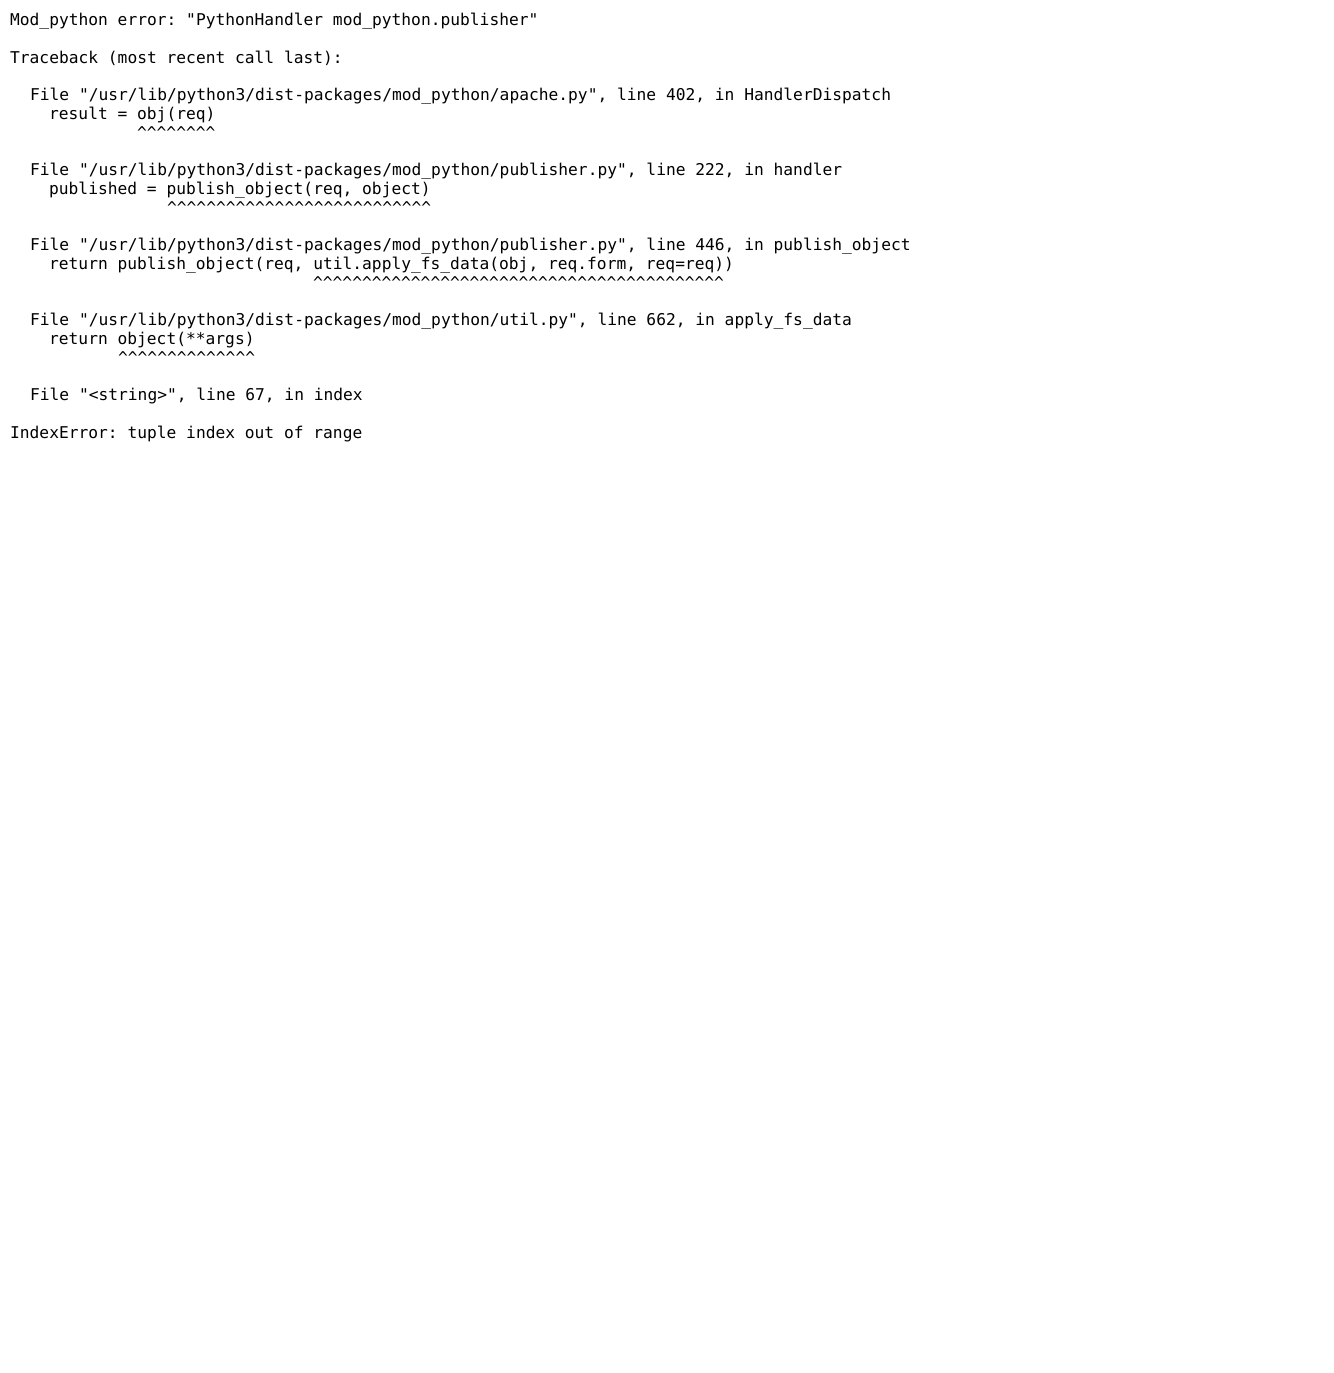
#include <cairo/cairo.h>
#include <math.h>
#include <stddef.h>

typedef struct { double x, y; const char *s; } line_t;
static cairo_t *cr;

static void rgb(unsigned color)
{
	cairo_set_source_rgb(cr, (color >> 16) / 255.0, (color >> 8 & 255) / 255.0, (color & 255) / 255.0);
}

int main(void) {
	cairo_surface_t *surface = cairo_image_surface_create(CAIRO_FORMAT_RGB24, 1334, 1373);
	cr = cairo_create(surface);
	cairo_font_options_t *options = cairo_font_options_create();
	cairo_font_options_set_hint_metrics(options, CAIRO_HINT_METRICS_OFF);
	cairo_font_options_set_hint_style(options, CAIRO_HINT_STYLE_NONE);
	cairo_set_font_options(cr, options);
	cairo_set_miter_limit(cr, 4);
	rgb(0xffffff);
	cairo_paint(cr);
	cairo_select_font_face(cr, "DejaVu Sans Mono", CAIRO_FONT_SLANT_NORMAL, CAIRO_FONT_WEIGHT_NORMAL);
	cairo_set_font_size(cr, 16.25);
	rgb(0x000000);
	{
		static const line_t items[] = {
			{10, 25, "Mod_python error: \"PythonHandler mod_python.publisher\""},
			{10, 63, "Traceback (most recent call last):"},
			{30, 100, "File \"/usr/lib/python3/dist-packages/mod_python/apache.py\", line 402, in HandlerDispatch"},
			{49, 119, "result = obj(req)"},
			{137, 138, "^^^^^^^^"},
			{30, 175, "File \"/usr/lib/python3/dist-packages/mod_python/publisher.py\", line 222, in handler"},
			{49, 194, "published = publish_object(req, object)"},
			{167, 213, "^^^^^^^^^^^^^^^^^^^^^^^^^^^"},
			{30, 250, "File \"/usr/lib/python3/dist-packages/mod_python/publisher.py\", line 446, in publish_object"},
			{49, 269, "return publish_object(req, util.apply_fs_data(obj, req.form, req=req))"},
			{313, 288, "^^^^^^^^^^^^^^^^^^^^^^^^^^^^^^^^^^^^^^^^^^"},
			{30, 325, "File \"/usr/lib/python3/dist-packages/mod_python/util.py\", line 662, in apply_fs_data"},
			{49, 344, "return object(**args)"},
			{118, 363, "^^^^^^^^^^^^^^"},
			{30, 400, "File \"<string>\", line 67, in index"},
			{10, 438, "IndexError: tuple index out of range"},
		};
		for (size_t i = 0; i < sizeof items / sizeof *items; i++) {
			cairo_move_to(cr, items[i].x, items[i].y);
			cairo_show_text(cr, items[i].s);
		}
	}
	cairo_surface_write_to_png(surface, "page.png");
	cairo_font_options_destroy(options);
	cairo_destroy(cr);
	cairo_surface_destroy(surface);
	return 0;
}
